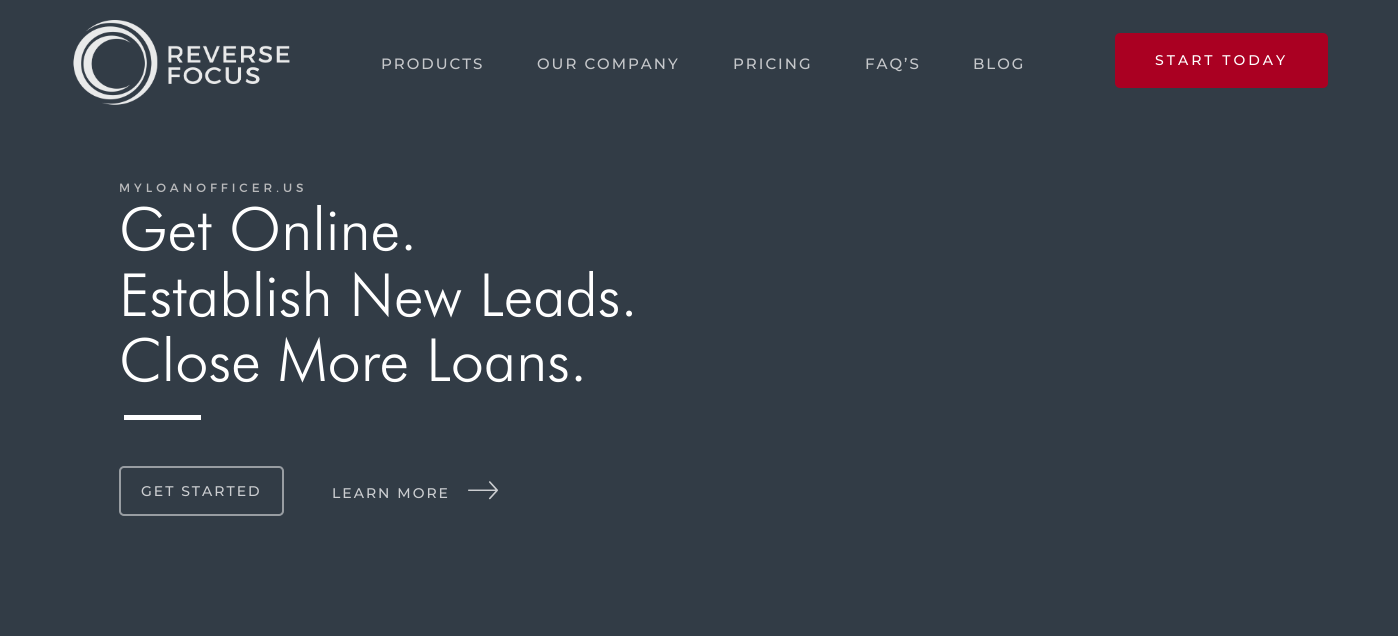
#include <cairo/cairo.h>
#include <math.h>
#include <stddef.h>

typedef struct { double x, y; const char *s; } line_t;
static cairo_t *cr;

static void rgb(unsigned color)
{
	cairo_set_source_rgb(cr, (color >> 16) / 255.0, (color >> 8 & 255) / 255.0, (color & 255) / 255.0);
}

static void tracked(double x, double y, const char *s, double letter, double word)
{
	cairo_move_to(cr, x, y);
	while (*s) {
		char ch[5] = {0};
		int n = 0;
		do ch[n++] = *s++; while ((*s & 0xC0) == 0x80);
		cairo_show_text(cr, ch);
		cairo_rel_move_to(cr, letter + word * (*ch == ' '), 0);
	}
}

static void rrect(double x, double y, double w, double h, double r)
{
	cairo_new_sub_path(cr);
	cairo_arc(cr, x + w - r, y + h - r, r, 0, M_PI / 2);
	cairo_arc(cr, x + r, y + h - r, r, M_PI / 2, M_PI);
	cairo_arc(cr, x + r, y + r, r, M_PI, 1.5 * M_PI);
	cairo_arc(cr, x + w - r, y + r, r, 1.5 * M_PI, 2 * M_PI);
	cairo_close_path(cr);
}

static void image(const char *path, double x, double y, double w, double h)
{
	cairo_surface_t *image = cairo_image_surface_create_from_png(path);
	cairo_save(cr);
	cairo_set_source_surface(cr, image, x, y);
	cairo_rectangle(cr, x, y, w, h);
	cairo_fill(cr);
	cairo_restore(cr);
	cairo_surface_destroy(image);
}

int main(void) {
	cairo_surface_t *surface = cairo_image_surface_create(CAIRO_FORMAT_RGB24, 1398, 636);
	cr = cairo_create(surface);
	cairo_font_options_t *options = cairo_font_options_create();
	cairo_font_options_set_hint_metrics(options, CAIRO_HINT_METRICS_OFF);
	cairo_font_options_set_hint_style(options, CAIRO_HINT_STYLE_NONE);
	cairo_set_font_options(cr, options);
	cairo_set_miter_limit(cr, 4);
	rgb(0x323c46);
	cairo_paint(cr);
	image("img/1.png", 73, 20, 217, 85);
	rgb(0xaa0022);
	rrect(1115, 33, 213, 55, 5);
	cairo_fill(cr);
	rgb(0xffffff);
	cairo_rectangle(cr, 124, 415, 77, 5);
	cairo_fill(cr);
	rrect(120, 467, 163, 48, 4);
	rgb(0x989da2);
	cairo_stroke(cr);
	image("img/2.png", 468, 481, 30, 19);
	cairo_select_font_face(cr, "Montserrat Medium", CAIRO_FONT_SLANT_NORMAL, CAIRO_FONT_WEIGHT_NORMAL);
	cairo_set_font_size(cr, 15);
	rgb(0xc6c8cb);
	{
		static const line_t items[] = {
			{381, 69, "PRODUCTS"},
			{537, 69, "OUR COMPANY"},
			{733, 69, "PRICING"},
			{865, 69, "FAQ’S"},
			{973, 69, "BLOG"},
		};
		for (size_t i = 0; i < sizeof items / sizeof *items; i++) {
			tracked(items[i].x, items[i].y, items[i].s, 2, 0);
		}
	}
	cairo_set_font_size(cr, 14);
	rgb(0xffffff);
	tracked(1155, 65, "START TODAY", 3, 0);
	cairo_select_font_face(cr, "Montserrat", CAIRO_FONT_SLANT_NORMAL, CAIRO_FONT_WEIGHT_NORMAL);
	cairo_set_font_size(cr, 12);
	rgb(0xb8b9bb);
	tracked(119, 192, "MYLOANOFFICER.US", 4, 0);
	cairo_select_font_face(cr, "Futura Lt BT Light", CAIRO_FONT_SLANT_NORMAL, CAIRO_FONT_WEIGHT_NORMAL);
	cairo_set_font_size(cr, 59.5);
	rgb(0xffffff);
	{
		static const line_t items[] = {
			{119, 250, "Get Online."},
			{119, 316, "Establish New Leads."},
			{119, 381, "Close More Loans."},
		};
		for (size_t i = 0; i < sizeof items / sizeof *items; i++) {
			cairo_move_to(cr, items[i].x, items[i].y);
			cairo_show_text(cr, items[i].s);
		}
	}
	cairo_select_font_face(cr, "Montserrat Medium", CAIRO_FONT_SLANT_NORMAL, CAIRO_FONT_WEIGHT_NORMAL);
	cairo_set_font_size(cr, 14);
	rgb(0xccced1);
	tracked(141, 496, "GET STARTED", 2, 0);
	tracked(332, 498, "LEARN MORE", 2, 0);
	cairo_surface_write_to_png(surface, "page.png");
	cairo_font_options_destroy(options);
	cairo_destroy(cr);
	cairo_surface_destroy(surface);
	return 0;
}
